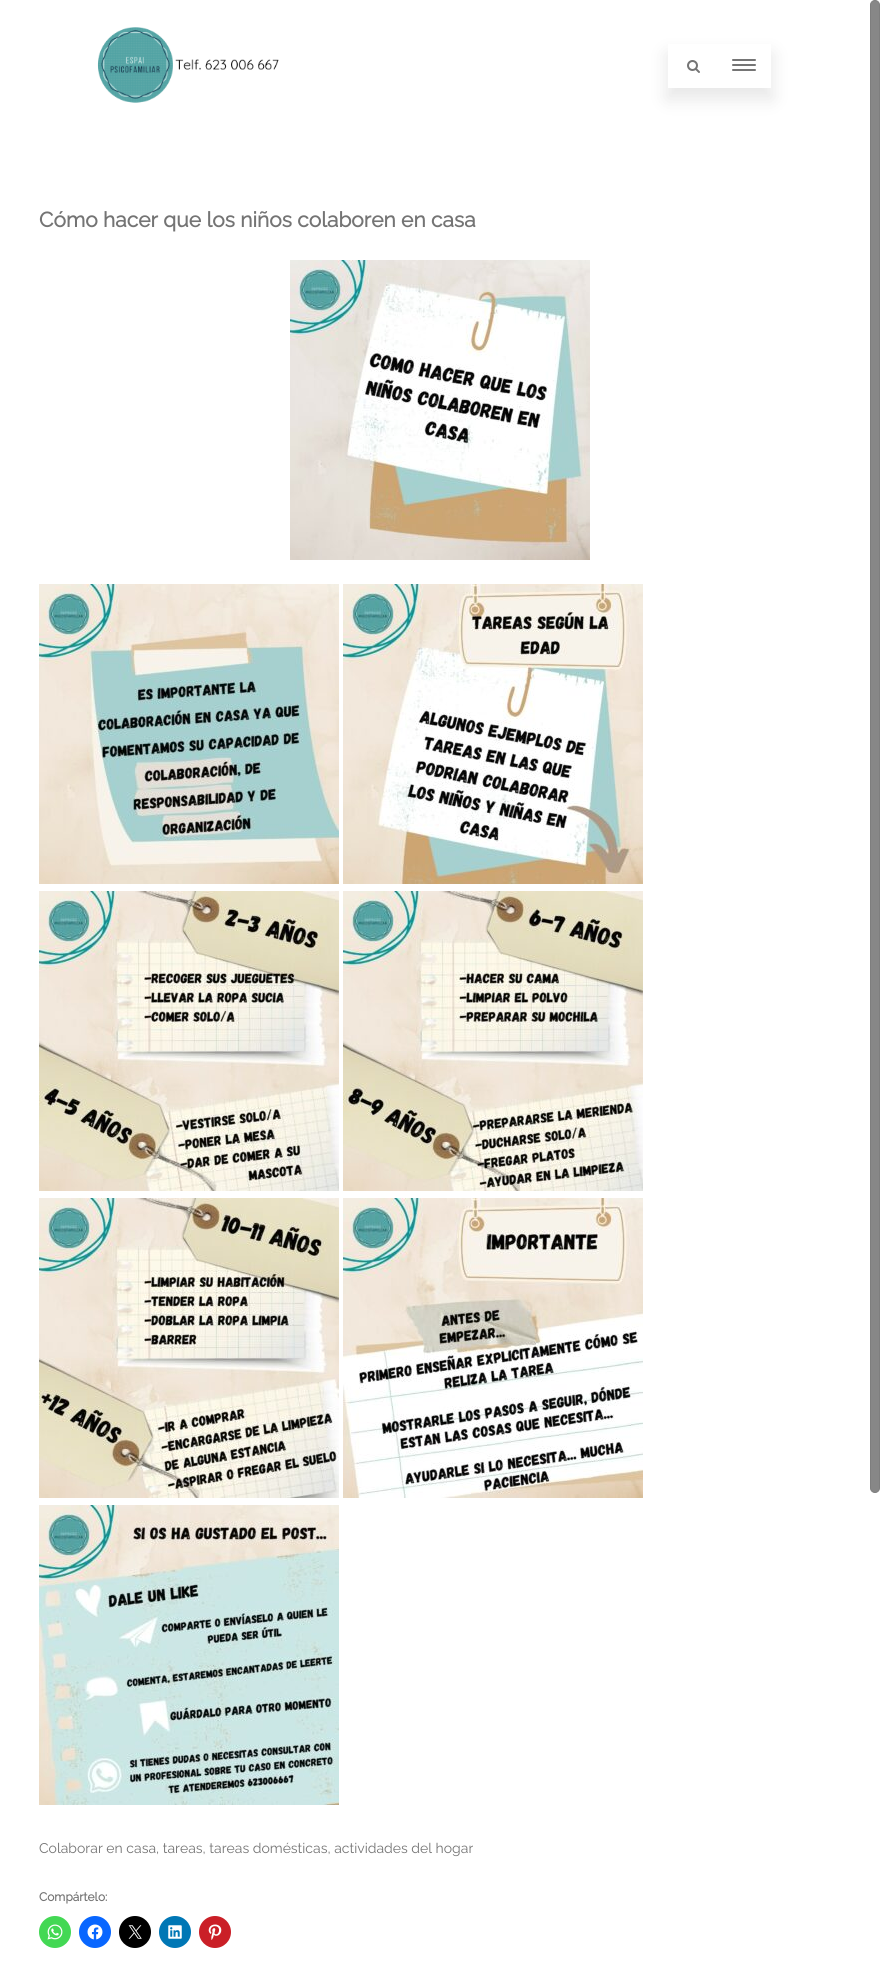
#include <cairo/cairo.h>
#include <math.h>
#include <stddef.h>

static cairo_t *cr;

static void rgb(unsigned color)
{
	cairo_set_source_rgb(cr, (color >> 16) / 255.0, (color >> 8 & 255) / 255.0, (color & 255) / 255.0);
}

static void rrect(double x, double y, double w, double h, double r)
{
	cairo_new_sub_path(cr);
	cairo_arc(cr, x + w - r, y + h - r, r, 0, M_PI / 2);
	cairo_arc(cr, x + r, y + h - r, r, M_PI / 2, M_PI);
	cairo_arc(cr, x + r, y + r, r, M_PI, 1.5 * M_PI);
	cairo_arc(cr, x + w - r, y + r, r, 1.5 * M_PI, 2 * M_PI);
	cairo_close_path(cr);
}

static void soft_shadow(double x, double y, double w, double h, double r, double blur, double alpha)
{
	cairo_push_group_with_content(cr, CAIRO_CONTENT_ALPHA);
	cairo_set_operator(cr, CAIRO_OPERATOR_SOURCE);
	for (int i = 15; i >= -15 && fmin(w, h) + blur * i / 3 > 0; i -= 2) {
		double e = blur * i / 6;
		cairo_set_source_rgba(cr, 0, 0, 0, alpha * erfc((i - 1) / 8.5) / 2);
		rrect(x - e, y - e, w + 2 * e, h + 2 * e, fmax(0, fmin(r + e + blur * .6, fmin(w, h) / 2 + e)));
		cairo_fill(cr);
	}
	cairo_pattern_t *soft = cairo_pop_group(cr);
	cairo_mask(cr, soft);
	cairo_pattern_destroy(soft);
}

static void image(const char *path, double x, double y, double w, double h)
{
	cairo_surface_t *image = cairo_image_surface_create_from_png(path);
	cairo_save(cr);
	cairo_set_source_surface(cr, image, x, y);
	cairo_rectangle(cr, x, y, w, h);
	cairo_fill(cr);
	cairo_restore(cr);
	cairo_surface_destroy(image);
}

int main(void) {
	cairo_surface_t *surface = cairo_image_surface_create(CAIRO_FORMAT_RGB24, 880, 1962);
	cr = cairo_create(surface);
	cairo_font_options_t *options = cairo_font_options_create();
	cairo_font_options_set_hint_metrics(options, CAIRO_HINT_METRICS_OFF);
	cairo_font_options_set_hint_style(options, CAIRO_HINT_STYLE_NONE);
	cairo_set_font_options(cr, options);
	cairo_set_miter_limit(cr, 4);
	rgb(0xffffff);
	cairo_paint(cr);
	image("img/1.png", 97, 27, 182, 76);
	cairo_save(cr);
	cairo_set_fill_rule(cr, CAIRO_FILL_RULE_EVEN_ODD);
	cairo_new_path(cr);
	cairo_move_to(cr, 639, 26);
	cairo_line_to(cr, 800, 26);
	cairo_line_to(cr, 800, 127);
	cairo_line_to(cr, 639, 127);
	cairo_close_path(cr);
	cairo_move_to(cr, 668, 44);
	cairo_line_to(cr, 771, 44);
	cairo_line_to(cr, 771, 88);
	cairo_line_to(cr, 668, 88);
	cairo_close_path(cr);
	cairo_clip(cr);
	rgb(0x404040);
	soft_shadow(667, 54, 105, 45, 0, 9, 0.13);
	cairo_restore(cr);
	image("img/2.png", 687, 60, 13, 13);
	rgb(0x757575);
	rrect(732, 59, 24, 2, 1);
	cairo_fill(cr);
	rrect(732, 64, 24, 2, 1);
	cairo_fill(cr);
	rrect(732, 69, 24, 2, 1);
	cairo_fill(cr);
	image("img/3.png", 290, 260, 300, 300);
	image("img/4.png", 39, 584, 300, 300);
	image("img/5.png", 343, 584, 300, 300);
	image("img/6.png", 39, 891, 300, 300);
	image("img/7.png", 343, 891, 300, 300);
	image("img/8.png", 39, 1198, 300, 300);
	image("img/9.png", 343, 1198, 300, 300);
	image("img/10.png", 39, 1505, 300, 300);
	rgb(0x43d854);
	cairo_arc(cr, 55, 1932, 16, 0, 2 * M_PI);
	cairo_fill(cr);
	image("img/11.png", 47, 1924, 16, 16);
	rgb(0x0866ff);
	cairo_arc(cr, 95, 1932, 16, 0, 2 * M_PI);
	cairo_fill(cr);
	image("img/12.png", 87, 1924, 16, 16);
	rgb(0x000000);
	cairo_arc(cr, 135, 1932, 16, 0, 2 * M_PI);
	cairo_fill(cr);
	image("img/13.png", 128, 1925, 14, 14);
	rgb(0x0077b5);
	cairo_arc(cr, 175, 1932, 16, 0, 2 * M_PI);
	cairo_fill(cr);
	image("img/14.png", 168, 1925, 14, 14);
	rgb(0xca1f27);
	cairo_arc(cr, 215, 1932, 16, 0, 2 * M_PI);
	cairo_fill(cr);
	image("img/15.png", 208, 1924, 14, 16);
	rgb(0x878787);
	rrect(870.5, 0.5, 9, 1492, 4.5);
	cairo_fill_preserve(cr);
	rgb(0x7e7e7e);
	cairo_set_line_width(cr, 1);
	cairo_stroke(cr);
	cairo_select_font_face(cr, "Raleway", CAIRO_FONT_SLANT_NORMAL, CAIRO_FONT_WEIGHT_BOLD);
	cairo_set_font_size(cr, 21);
	rgb(0x747474);
	cairo_move_to(cr, 39, 227);
	cairo_show_text(cr, "Cómo hacer que los niños colaboren en casa");
	cairo_select_font_face(cr, "Raleway", CAIRO_FONT_SLANT_NORMAL, CAIRO_FONT_WEIGHT_NORMAL);
	cairo_set_font_size(cr, 14);
	cairo_move_to(cr, 39, 1853);
	cairo_show_text(cr, "Colaborar en casa, tareas, tareas domésticas, actividades del hogar");
	cairo_select_font_face(cr, "Raleway", CAIRO_FONT_SLANT_NORMAL, CAIRO_FONT_WEIGHT_BOLD);
	cairo_set_font_size(cr, 12);
	cairo_move_to(cr, 39, 1901);
	cairo_show_text(cr, "Compártelo:");
	cairo_surface_write_to_png(surface, "page.png");
	cairo_font_options_destroy(options);
	cairo_destroy(cr);
	cairo_surface_destroy(surface);
	return 0;
}
